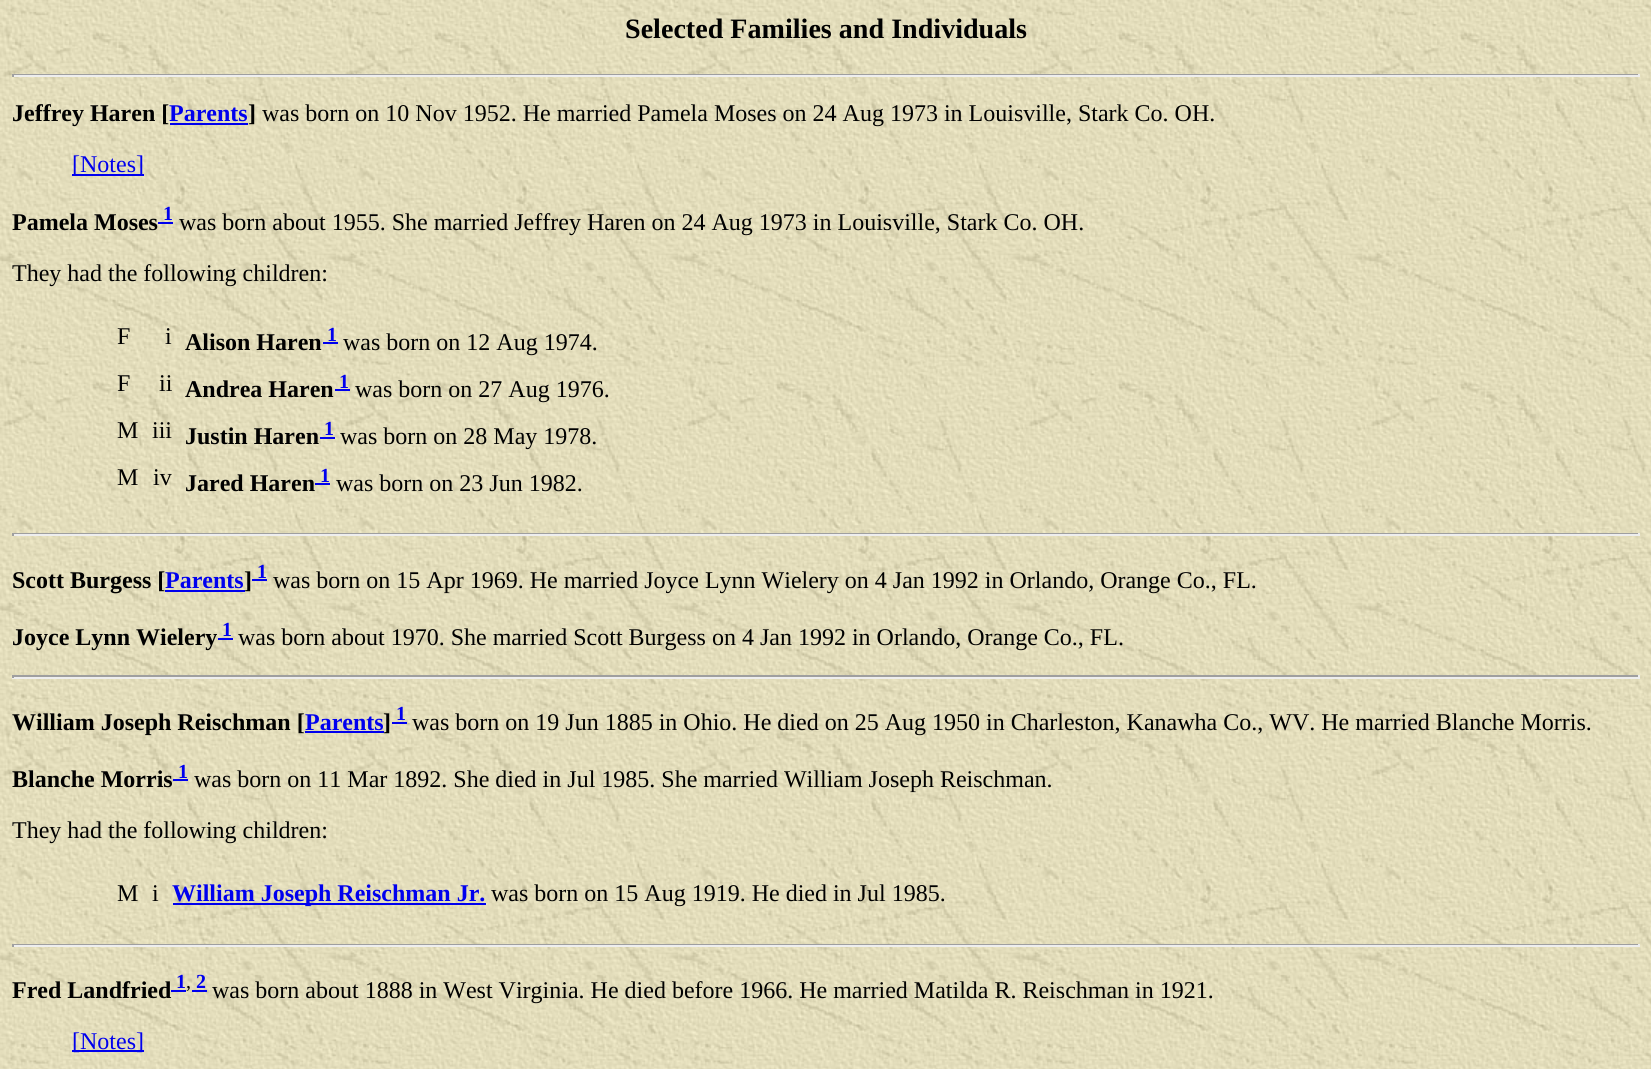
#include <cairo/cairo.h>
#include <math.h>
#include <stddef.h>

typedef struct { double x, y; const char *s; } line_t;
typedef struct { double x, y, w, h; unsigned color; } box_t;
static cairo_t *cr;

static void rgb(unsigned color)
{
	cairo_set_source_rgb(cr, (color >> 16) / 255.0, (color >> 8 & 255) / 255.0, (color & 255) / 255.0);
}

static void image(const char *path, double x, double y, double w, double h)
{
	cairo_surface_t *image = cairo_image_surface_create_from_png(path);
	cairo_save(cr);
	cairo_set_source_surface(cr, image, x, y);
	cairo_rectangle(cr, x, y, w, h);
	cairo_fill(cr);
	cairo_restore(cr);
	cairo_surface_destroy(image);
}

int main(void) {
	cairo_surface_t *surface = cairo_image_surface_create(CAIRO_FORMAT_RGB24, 1651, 1069);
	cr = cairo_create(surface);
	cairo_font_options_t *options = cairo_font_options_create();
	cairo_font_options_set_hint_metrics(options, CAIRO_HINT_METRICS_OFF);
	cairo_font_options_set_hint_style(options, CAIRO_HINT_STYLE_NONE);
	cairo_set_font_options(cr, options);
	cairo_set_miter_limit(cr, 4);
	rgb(0xffffff);
	cairo_paint(cr);
	image("img/1.png", 0, 0, 1651, 1069);
	{
		static const box_t items[] = {
			{12, 74, 1628, 1, 0x9f9f9f},
			{1638, 74, 2, 3, 0xeeeeee},
			{12, 75, 1628, 2, 0xeeeeee},
			{12, 74, 2, 3, 0x9f9f9f},
			{170, 123, 78, 2, 0x0000ee},
			{72, 174, 72, 2, 0x0000ee},
			{158, 222, 15, 2, 0x0000ee},
			{323, 342, 15, 2, 0x0000ee},
			{335, 389, 15, 2, 0x0000ee},
			{320, 437, 15, 2, 0x0000ee},
			{315, 483, 15, 2, 0x0000ee},
			{12, 533, 1628, 1, 0x9f9f9f},
			{1638, 533, 2, 3, 0xeeeeee},
			{12, 534, 1628, 2, 0xeeeeee},
			{12, 533, 2, 3, 0x9f9f9f},
			{165, 590, 80, 2, 0x0000ee},
			{252, 579, 15, 2, 0x0000ee},
			{218, 638, 15, 2, 0x0000ee},
			{12, 675, 1628, 2, 0x9f9f9f},
			{1638, 675, 2, 3, 0xeeeeee},
			{12, 677, 1628, 2, 0xeeeeee},
			{12, 675, 2, 3, 0x9f9f9f},
			{305, 731, 79, 2, 0x0000ee},
			{392, 722, 15, 2, 0x0000ee},
			{173, 779, 15, 2, 0x0000ee},
			{173, 903, 313, 2, 0x0000ee},
			{12, 944, 1628, 1, 0x9f9f9f},
			{1638, 944, 2, 3, 0xeeeeee},
			{12, 945, 1628, 2, 0xeeeeee},
			{12, 944, 2, 3, 0x9f9f9f},
			{192, 990, 15, 2, 0x0000ee},
			{72, 1050, 72, 2, 0x0000ee},
		};
		for (size_t i = 0; i < sizeof items / sizeof *items; i++) {
			rgb(items[i].color);
			cairo_rectangle(cr, items[i].x, items[i].y, items[i].w, items[i].h);
			cairo_fill(cr);
		}
	}
	cairo_select_font_face(cr, "Liberation Serif", CAIRO_FONT_SLANT_NORMAL, CAIRO_FONT_WEIGHT_BOLD);
	cairo_set_font_size(cr, 28.1);
	rgb(0x000000);
	cairo_move_to(cr, 625, 38);
	cairo_show_text(cr, "Selected Families and Individuals");
	cairo_set_font_size(cr, 24);
	cairo_move_to(cr, 12, 121);
	cairo_show_text(cr, "Jeffrey Haren [");
	rgb(0x0000ee);
	cairo_move_to(cr, 169, 121);
	cairo_show_text(cr, "Parents");
	rgb(0x000000);
	cairo_move_to(cr, 248, 121);
	cairo_show_text(cr, "]");
	cairo_select_font_face(cr, "Liberation Serif", CAIRO_FONT_SLANT_NORMAL, CAIRO_FONT_WEIGHT_NORMAL);
	cairo_move_to(cr, 262, 121);
	cairo_show_text(cr, "was born on 10 Nov 1952. He married Pamela Moses on 24 Aug 1973 in Louisville, Stark Co. OH.");
	rgb(0x0000ee);
	cairo_move_to(cr, 72, 172);
	cairo_show_text(cr, "[Notes]");
	cairo_select_font_face(cr, "Liberation Serif", CAIRO_FONT_SLANT_NORMAL, CAIRO_FONT_WEIGHT_BOLD);
	rgb(0x000000);
	cairo_move_to(cr, 12, 230);
	cairo_show_text(cr, "Pamela Moses");
	cairo_set_font_size(cr, 20);
	rgb(0x0000ee);
	cairo_move_to(cr, 163, 220);
	cairo_show_text(cr, "1");
	cairo_select_font_face(cr, "Liberation Serif", CAIRO_FONT_SLANT_NORMAL, CAIRO_FONT_WEIGHT_NORMAL);
	cairo_set_font_size(cr, 24);
	rgb(0x000000);
	{
		static const line_t items[] = {
			{179, 230, "was born about 1955. She married Jeffrey Haren on 24 Aug 1973 in Louisville, Stark Co. OH."},
			{12, 281, "They had the following children:"},
			{117, 344, "F"},
			{165, 344, "i"},
		};
		for (size_t i = 0; i < sizeof items / sizeof *items; i++) {
			cairo_move_to(cr, items[i].x, items[i].y);
			cairo_show_text(cr, items[i].s);
		}
	}
	cairo_select_font_face(cr, "Liberation Serif", CAIRO_FONT_SLANT_NORMAL, CAIRO_FONT_WEIGHT_BOLD);
	cairo_move_to(cr, 185, 350);
	cairo_show_text(cr, "Alison Haren");
	cairo_set_font_size(cr, 20);
	rgb(0x0000ee);
	cairo_move_to(cr, 327, 341);
	cairo_show_text(cr, "1");
	cairo_select_font_face(cr, "Liberation Serif", CAIRO_FONT_SLANT_NORMAL, CAIRO_FONT_WEIGHT_NORMAL);
	cairo_set_font_size(cr, 24);
	rgb(0x000000);
	{
		static const line_t items[] = {
			{343, 350, "was born on 12 Aug 1974."},
			{117, 391, "F"},
			{159, 391, "ii"},
		};
		for (size_t i = 0; i < sizeof items / sizeof *items; i++) {
			cairo_move_to(cr, items[i].x, items[i].y);
			cairo_show_text(cr, items[i].s);
		}
	}
	cairo_select_font_face(cr, "Liberation Serif", CAIRO_FONT_SLANT_NORMAL, CAIRO_FONT_WEIGHT_BOLD);
	cairo_move_to(cr, 185, 397);
	cairo_show_text(cr, "Andrea Haren");
	cairo_set_font_size(cr, 20);
	rgb(0x0000ee);
	cairo_move_to(cr, 339, 388);
	cairo_show_text(cr, "1");
	cairo_select_font_face(cr, "Liberation Serif", CAIRO_FONT_SLANT_NORMAL, CAIRO_FONT_WEIGHT_NORMAL);
	cairo_set_font_size(cr, 24);
	rgb(0x000000);
	{
		static const line_t items[] = {
			{355, 397, "was born on 27 Aug 1976."},
			{117, 438, "M"},
			{152, 438, "iii"},
		};
		for (size_t i = 0; i < sizeof items / sizeof *items; i++) {
			cairo_move_to(cr, items[i].x, items[i].y);
			cairo_show_text(cr, items[i].s);
		}
	}
	cairo_select_font_face(cr, "Liberation Serif", CAIRO_FONT_SLANT_NORMAL, CAIRO_FONT_WEIGHT_BOLD);
	cairo_move_to(cr, 185, 444);
	cairo_show_text(cr, "Justin Haren");
	cairo_set_font_size(cr, 20);
	rgb(0x0000ee);
	cairo_move_to(cr, 324, 435);
	cairo_show_text(cr, "1");
	cairo_select_font_face(cr, "Liberation Serif", CAIRO_FONT_SLANT_NORMAL, CAIRO_FONT_WEIGHT_NORMAL);
	cairo_set_font_size(cr, 24);
	rgb(0x000000);
	{
		static const line_t items[] = {
			{340, 444, "was born on 28 May 1978."},
			{117, 485, "M"},
			{153, 485, "iv"},
		};
		for (size_t i = 0; i < sizeof items / sizeof *items; i++) {
			cairo_move_to(cr, items[i].x, items[i].y);
			cairo_show_text(cr, items[i].s);
		}
	}
	cairo_select_font_face(cr, "Liberation Serif", CAIRO_FONT_SLANT_NORMAL, CAIRO_FONT_WEIGHT_BOLD);
	cairo_move_to(cr, 185, 491);
	cairo_show_text(cr, "Jared Haren");
	cairo_set_font_size(cr, 20);
	rgb(0x0000ee);
	cairo_move_to(cr, 320, 482);
	cairo_show_text(cr, "1");
	cairo_select_font_face(cr, "Liberation Serif", CAIRO_FONT_SLANT_NORMAL, CAIRO_FONT_WEIGHT_NORMAL);
	cairo_set_font_size(cr, 24);
	rgb(0x000000);
	cairo_move_to(cr, 336, 491);
	cairo_show_text(cr, "was born on 23 Jun 1982.");
	cairo_select_font_face(cr, "Liberation Serif", CAIRO_FONT_SLANT_NORMAL, CAIRO_FONT_WEIGHT_BOLD);
	cairo_move_to(cr, 12, 588);
	cairo_show_text(cr, "Scott Burgess [");
	rgb(0x0000ee);
	cairo_move_to(cr, 165, 588);
	cairo_show_text(cr, "Parents");
	rgb(0x000000);
	cairo_move_to(cr, 244, 588);
	cairo_show_text(cr, "]");
	cairo_set_font_size(cr, 20);
	rgb(0x0000ee);
	cairo_move_to(cr, 257, 578);
	cairo_show_text(cr, "1");
	cairo_select_font_face(cr, "Liberation Serif", CAIRO_FONT_SLANT_NORMAL, CAIRO_FONT_WEIGHT_NORMAL);
	cairo_set_font_size(cr, 24);
	rgb(0x000000);
	cairo_move_to(cr, 273, 588);
	cairo_show_text(cr, "was born on 15 Apr 1969. He married Joyce Lynn Wielery on 4 Jan 1992 in Orlando, Orange Co., FL.");
	cairo_select_font_face(cr, "Liberation Serif", CAIRO_FONT_SLANT_NORMAL, CAIRO_FONT_WEIGHT_BOLD);
	cairo_move_to(cr, 12, 645);
	cairo_show_text(cr, "Joyce Lynn Wielery");
	cairo_set_font_size(cr, 20);
	rgb(0x0000ee);
	cairo_move_to(cr, 222, 636);
	cairo_show_text(cr, "1");
	cairo_select_font_face(cr, "Liberation Serif", CAIRO_FONT_SLANT_NORMAL, CAIRO_FONT_WEIGHT_NORMAL);
	cairo_set_font_size(cr, 24);
	rgb(0x000000);
	cairo_move_to(cr, 238, 645);
	cairo_show_text(cr, "was born about 1970. She married Scott Burgess on 4 Jan 1992 in Orlando, Orange Co., FL.");
	cairo_select_font_face(cr, "Liberation Serif", CAIRO_FONT_SLANT_NORMAL, CAIRO_FONT_WEIGHT_BOLD);
	cairo_move_to(cr, 12, 730);
	cairo_show_text(cr, "William Joseph Reischman [");
	rgb(0x0000ee);
	cairo_move_to(cr, 305, 730);
	cairo_show_text(cr, "Parents");
	rgb(0x000000);
	cairo_move_to(cr, 383, 730);
	cairo_show_text(cr, "]");
	cairo_set_font_size(cr, 20);
	rgb(0x0000ee);
	cairo_move_to(cr, 396, 720);
	cairo_show_text(cr, "1");
	cairo_select_font_face(cr, "Liberation Serif", CAIRO_FONT_SLANT_NORMAL, CAIRO_FONT_WEIGHT_NORMAL);
	cairo_set_font_size(cr, 24);
	rgb(0x000000);
	cairo_move_to(cr, 412, 730);
	cairo_show_text(cr, "was born on 19 Jun 1885 in Ohio. He died on 25 Aug 1950 in Charleston, Kanawha Co., WV. He married Blanche Morris.");
	cairo_select_font_face(cr, "Liberation Serif", CAIRO_FONT_SLANT_NORMAL, CAIRO_FONT_WEIGHT_BOLD);
	cairo_move_to(cr, 12, 787);
	cairo_show_text(cr, "Blanche Morris");
	cairo_set_font_size(cr, 20);
	rgb(0x0000ee);
	cairo_move_to(cr, 178, 778);
	cairo_show_text(cr, "1");
	cairo_select_font_face(cr, "Liberation Serif", CAIRO_FONT_SLANT_NORMAL, CAIRO_FONT_WEIGHT_NORMAL);
	cairo_set_font_size(cr, 24);
	rgb(0x000000);
	{
		static const line_t items[] = {
			{194, 787, "was born on 11 Mar 1892. She died in Jul 1985. She married William Joseph Reischman."},
			{12, 838, "They had the following children:"},
			{117, 901, "M"},
			{152, 901, "i"},
		};
		for (size_t i = 0; i < sizeof items / sizeof *items; i++) {
			cairo_move_to(cr, items[i].x, items[i].y);
			cairo_show_text(cr, items[i].s);
		}
	}
	cairo_select_font_face(cr, "Liberation Serif", CAIRO_FONT_SLANT_NORMAL, CAIRO_FONT_WEIGHT_BOLD);
	rgb(0x0000ee);
	cairo_move_to(cr, 172, 901);
	cairo_show_text(cr, "William Joseph Reischman Jr.");
	cairo_select_font_face(cr, "Liberation Serif", CAIRO_FONT_SLANT_NORMAL, CAIRO_FONT_WEIGHT_NORMAL);
	rgb(0x000000);
	cairo_move_to(cr, 491, 901);
	cairo_show_text(cr, "was born on 15 Aug 1919. He died in Jul 1985.");
	cairo_select_font_face(cr, "Liberation Serif", CAIRO_FONT_SLANT_NORMAL, CAIRO_FONT_WEIGHT_BOLD);
	cairo_move_to(cr, 12, 998);
	cairo_show_text(cr, "Fred Landfried");
	cairo_set_font_size(cr, 20);
	rgb(0x0000ee);
	cairo_move_to(cr, 176, 988);
	cairo_show_text(cr, "1");
	cairo_select_font_face(cr, "Liberation Serif", CAIRO_FONT_SLANT_NORMAL, CAIRO_FONT_WEIGHT_NORMAL);
	rgb(0x000000);
	cairo_move_to(cr, 186, 988);
	cairo_show_text(cr, ",");
	rgb(0x0000ee);
	cairo_rectangle(cr, 171, 990, 15, 2);
	cairo_fill(cr);
	cairo_select_font_face(cr, "Liberation Serif", CAIRO_FONT_SLANT_NORMAL, CAIRO_FONT_WEIGHT_BOLD);
	cairo_move_to(cr, 196, 988);
	cairo_show_text(cr, "2");
	cairo_select_font_face(cr, "Liberation Serif", CAIRO_FONT_SLANT_NORMAL, CAIRO_FONT_WEIGHT_NORMAL);
	cairo_set_font_size(cr, 24);
	rgb(0x000000);
	cairo_move_to(cr, 212, 998);
	cairo_show_text(cr, "was born about 1888 in West Virginia. He died before 1966. He married Matilda R. Reischman in 1921.");
	rgb(0x0000ee);
	cairo_move_to(cr, 72, 1049);
	cairo_show_text(cr, "[Notes]");
	cairo_surface_write_to_png(surface, "page.png");
	cairo_font_options_destroy(options);
	cairo_destroy(cr);
	cairo_surface_destroy(surface);
	return 0;
}
